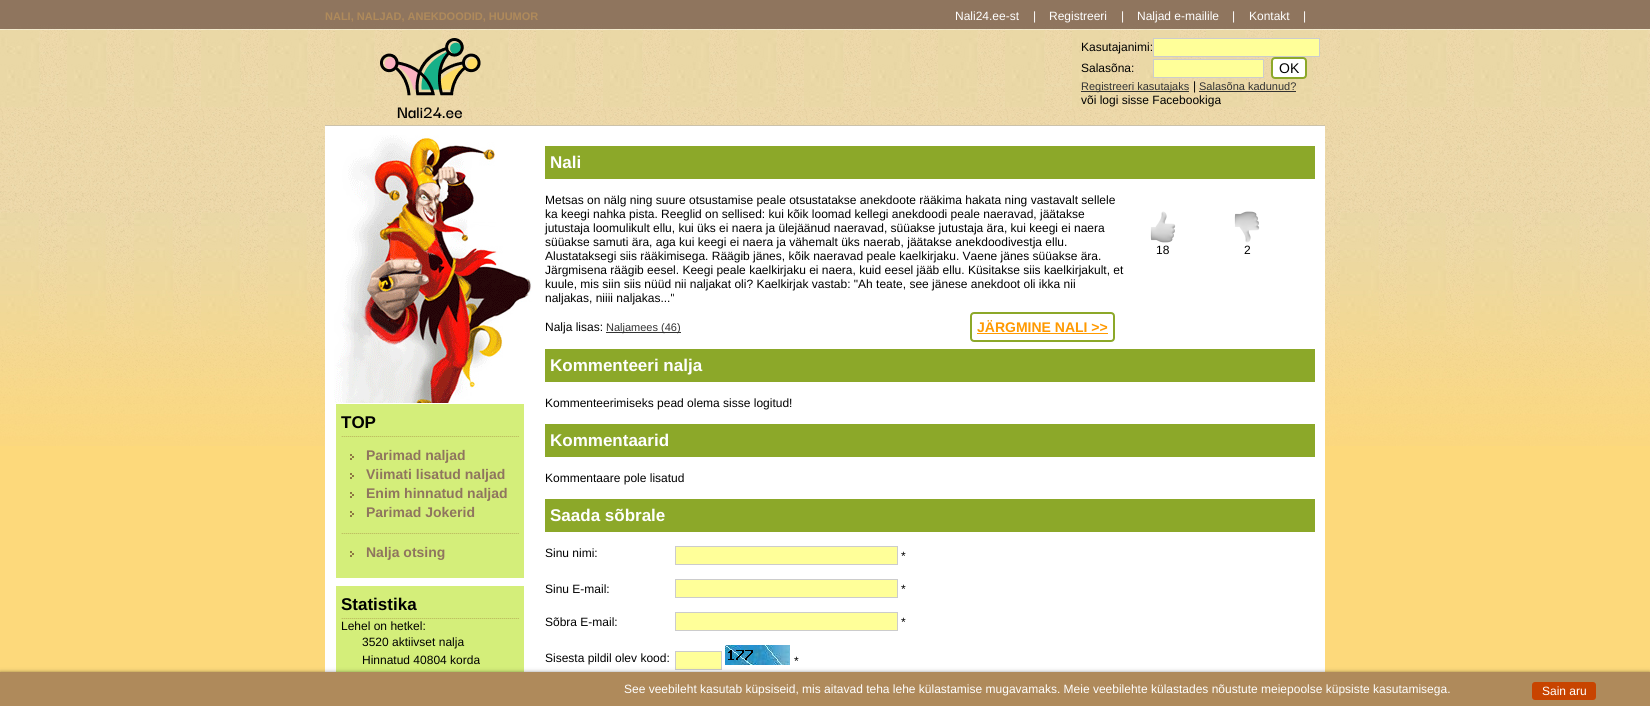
#include <cairo/cairo.h>
#include <math.h>
#include <stddef.h>

typedef struct { double x, y; const char *s; } line_t;
typedef struct { double x, y, w, h; unsigned color; } box_t;
static cairo_t *cr;

static void rgb(unsigned color)
{
	cairo_set_source_rgb(cr, (color >> 16) / 255.0, (color >> 8 & 255) / 255.0, (color & 255) / 255.0);
}

static void rrect(double x, double y, double w, double h, double r)
{
	cairo_new_sub_path(cr);
	cairo_arc(cr, x + w - r, y + h - r, r, 0, M_PI / 2);
	cairo_arc(cr, x + r, y + h - r, r, M_PI / 2, M_PI);
	cairo_arc(cr, x + r, y + r, r, M_PI, 1.5 * M_PI);
	cairo_arc(cr, x + w - r, y + r, r, 1.5 * M_PI, 2 * M_PI);
	cairo_close_path(cr);
}

static void soft_shadow(double x, double y, double w, double h, double r, double blur, double alpha)
{
	cairo_push_group_with_content(cr, CAIRO_CONTENT_ALPHA);
	cairo_set_operator(cr, CAIRO_OPERATOR_SOURCE);
	for (int i = 15; i >= -15 && fmin(w, h) + blur * i / 3 > 0; i -= 2) {
		double e = blur * i / 6;
		cairo_set_source_rgba(cr, 0, 0, 0, alpha * erfc((i - 1) / 8.5) / 2);
		rrect(x - e, y - e, w + 2 * e, h + 2 * e, fmax(0, fmin(r + e + blur * .6, fmin(w, h) / 2 + e)));
		cairo_fill(cr);
	}
	cairo_pattern_t *soft = cairo_pop_group(cr);
	cairo_mask(cr, soft);
	cairo_pattern_destroy(soft);
}

static void image(const char *path, double x, double y, double w, double h)
{
	cairo_surface_t *image = cairo_image_surface_create_from_png(path);
	cairo_save(cr);
	cairo_set_source_surface(cr, image, x, y);
	cairo_rectangle(cr, x, y, w, h);
	cairo_fill(cr);
	cairo_restore(cr);
	cairo_surface_destroy(image);
}

int main(void) {
	cairo_surface_t *surface = cairo_image_surface_create(CAIRO_FORMAT_RGB24, 1650, 706);
	cr = cairo_create(surface);
	cairo_font_options_t *options = cairo_font_options_create();
	cairo_font_options_set_hint_metrics(options, CAIRO_HINT_METRICS_OFF);
	cairo_font_options_set_hint_style(options, CAIRO_HINT_STYLE_NONE);
	cairo_set_font_options(cr, options);
	cairo_set_miter_limit(cr, 4);
	rgb(0xfdd97b);
	cairo_paint(cr);
	image("img/1.png", 0, 0, 1650, 446);
	image("img/2.png", 380, 38, 101, 81);
	rgb(0xffff99);
	cairo_rectangle(cr, 1153.5, 38.5, 166, 18);
	cairo_fill_preserve(cr);
	rgb(0xcccccc);
	cairo_set_line_width(cr, 1);
	cairo_stroke(cr);
	rgb(0xffff99);
	cairo_rectangle(cr, 1153.5, 59.5, 110, 18);
	cairo_fill_preserve(cr);
	rgb(0xcccccc);
	cairo_stroke(cr);
	rgb(0xffffff);
	rrect(1272, 58, 34, 20, 3);
	cairo_fill_preserve(cr);
	rgb(0x8ca829);
	cairo_set_line_width(cr, 2);
	cairo_stroke(cr);
	{
		static const box_t items[] = {
			{1081, 91, 108, 1, 0x333333},
			{1199, 91, 97, 1, 0x333333},
			{325, 126, 1000, 546, 0xffffff},
			{325, 125, 1000, 1, 0xccc2aa},
		};
		for (size_t i = 0; i < sizeof items / sizeof *items; i++) {
			rgb(items[i].color);
			cairo_rectangle(cr, items[i].x, items[i].y, items[i].w, items[i].h);
			cairo_fill(cr);
		}
	}
	image("img/3.png", 334, 135, 198, 268);
	rgb(0xd4ee7a);
	cairo_rectangle(cr, 336, 404, 188, 174);
	cairo_fill(cr);
	image("img/4.png", 341, 436, 178, 1);
	image("img/5.png", 350, 454, 4, 6);
	image("img/5.png", 350, 473, 4, 6);
	image("img/5.png", 350, 492, 4, 6);
	image("img/5.png", 350, 511, 4, 6);
	image("img/4.png", 341, 533, 178, 1);
	image("img/5.png", 350, 551, 4, 6);
	cairo_rectangle(cr, 336, 586, 188, 86);
	cairo_fill(cr);
	cairo_rectangle(cr, 335.5, 585.5, 189, 89);
	rgb(0xffffff);
	cairo_set_line_width(cr, 1);
	cairo_stroke(cr);
	image("img/4.png", 341, 618, 178, 1);
	rgb(0x8ca829);
	cairo_rectangle(cr, 545, 146, 770, 33);
	cairo_fill(cr);
	rgb(0x333333);
	cairo_rectangle(cr, 606, 332, 75, 1);
	cairo_fill(cr);
	rrect(971, 313, 143, 28, 3);
	rgb(0x8ca829);
	cairo_set_line_width(cr, 2);
	cairo_stroke(cr);
	rgb(0xff9900);
	cairo_rectangle(cr, 977, 333, 131, 1);
	cairo_fill(cr);
	image("img/6.png", 1150, 211, 26, 32);
	image("img/7.png", 1234, 211, 26, 32);
	{
		static const box_t items[] = {
			{545, 349, 770, 33, 0x8ca829},
			{545, 424, 770, 33, 0x8ca829},
			{545, 499, 770, 33, 0x8ca829},
		};
		for (size_t i = 0; i < sizeof items / sizeof *items; i++) {
			rgb(items[i].color);
			cairo_rectangle(cr, items[i].x, items[i].y, items[i].w, items[i].h);
			cairo_fill(cr);
		}
	}
	rgb(0xffff99);
	cairo_rectangle(cr, 675.5, 546.5, 222, 18);
	cairo_fill_preserve(cr);
	rgb(0xcccccc);
	cairo_set_line_width(cr, 1);
	cairo_stroke(cr);
	rgb(0xffff99);
	cairo_rectangle(cr, 675.5, 579.5, 222, 18);
	cairo_fill_preserve(cr);
	rgb(0xcccccc);
	cairo_stroke(cr);
	rgb(0xffff99);
	cairo_rectangle(cr, 675.5, 612.5, 222, 18);
	cairo_fill_preserve(cr);
	rgb(0xcccccc);
	cairo_stroke(cr);
	rgb(0xffff99);
	cairo_rectangle(cr, 675.5, 651.5, 46, 18);
	cairo_fill_preserve(cr);
	rgb(0xcccccc);
	cairo_stroke(cr);
	image("img/8.png", 725, 645, 65, 20);
	rgb(0x000000);
	soft_shadow(0, 672, 1650, 34, 0, 2, 0.4);
	rgb(0xaf8a5b);
	cairo_rectangle(cr, 0, 672, 1650, 34);
	cairo_fill(cr);
	rgb(0xc84400);
	rrect(1532, 682, 64, 18, 3);
	cairo_fill(cr);
	cairo_select_font_face(cr, "Liberation Sans", CAIRO_FONT_SLANT_NORMAL, CAIRO_FONT_WEIGHT_BOLD);
	cairo_set_font_size(cr, 11);
	rgb(0xaf8a5b);
	cairo_move_to(cr, 325, 20);
	cairo_show_text(cr, "NALI, NALJAD, ANEKDOODID, HUUMOR");
	cairo_select_font_face(cr, "Liberation Sans", CAIRO_FONT_SLANT_NORMAL, CAIRO_FONT_WEIGHT_NORMAL);
	cairo_set_font_size(cr, 12);
	rgb(0xffffff);
	{
		static const line_t items[] = {
			{955, 20, "Nali24.ee-st"},
			{1033, 20, "|"},
			{1049, 20, "Registreeri"},
			{1121, 20, "|"},
			{1137, 20, "Naljad e-mailile"},
			{1232, 20, "|"},
			{1249, 20, "Kontakt"},
			{1303, 20, "|"},
		};
		for (size_t i = 0; i < sizeof items / sizeof *items; i++) {
			cairo_move_to(cr, items[i].x, items[i].y);
			cairo_show_text(cr, items[i].s);
		}
	}
	rgb(0x000000);
	cairo_move_to(cr, 1081, 51);
	cairo_show_text(cr, "Kasutajanimi:");
	cairo_move_to(cr, 1081, 72);
	cairo_show_text(cr, "Salasõna:");
	cairo_set_font_size(cr, 14);
	cairo_move_to(cr, 1279, 73);
	cairo_show_text(cr, "OK");
	cairo_set_font_size(cr, 11);
	rgb(0x333333);
	cairo_move_to(cr, 1081, 90);
	cairo_show_text(cr, "Registreeri kasutajaks");
	cairo_set_font_size(cr, 12);
	rgb(0x000000);
	cairo_move_to(cr, 1193, 90);
	cairo_show_text(cr, "|");
	cairo_set_font_size(cr, 11);
	rgb(0x333333);
	cairo_move_to(cr, 1199, 90);
	cairo_show_text(cr, "Salasõna kadunud?");
	cairo_set_font_size(cr, 12);
	rgb(0x000000);
	cairo_move_to(cr, 1081, 104);
	cairo_show_text(cr, "või logi sisse Facebookiga");
	cairo_select_font_face(cr, "Liberation Sans", CAIRO_FONT_SLANT_NORMAL, CAIRO_FONT_WEIGHT_BOLD);
	cairo_set_font_size(cr, 17);
	cairo_move_to(cr, 341, 428);
	cairo_show_text(cr, "TOP");
	cairo_set_font_size(cr, 14);
	rgb(0x8f755e);
	{
		static const line_t items[] = {
			{366, 460, "Parimad naljad"},
			{366, 479, "Viimati lisatud naljad"},
			{366, 498, "Enim hinnatud naljad"},
			{366, 517, "Parimad Jokerid"},
			{366, 557, "Nalja otsing"},
		};
		for (size_t i = 0; i < sizeof items / sizeof *items; i++) {
			cairo_move_to(cr, items[i].x, items[i].y);
			cairo_show_text(cr, items[i].s);
		}
	}
	cairo_set_font_size(cr, 17);
	rgb(0x000000);
	cairo_move_to(cr, 341, 610);
	cairo_show_text(cr, "Statistika");
	cairo_select_font_face(cr, "Liberation Sans", CAIRO_FONT_SLANT_NORMAL, CAIRO_FONT_WEIGHT_NORMAL);
	cairo_set_font_size(cr, 12);
	{
		static const line_t items[] = {
			{341, 630, "Lehel on hetkel:"},
			{362, 646, "3520 aktiivset nalja"},
			{362, 664, "Hinnatud 40804 korda"},
		};
		for (size_t i = 0; i < sizeof items / sizeof *items; i++) {
			cairo_move_to(cr, items[i].x, items[i].y);
			cairo_show_text(cr, items[i].s);
		}
	}
	cairo_select_font_face(cr, "Liberation Sans", CAIRO_FONT_SLANT_NORMAL, CAIRO_FONT_WEIGHT_BOLD);
	cairo_set_font_size(cr, 17);
	rgb(0xffffff);
	cairo_move_to(cr, 550, 168);
	cairo_show_text(cr, "Nali");
	cairo_select_font_face(cr, "Liberation Sans", CAIRO_FONT_SLANT_NORMAL, CAIRO_FONT_WEIGHT_NORMAL);
	cairo_set_font_size(cr, 12);
	rgb(0x000000);
	{
		static const line_t items[] = {
			{545, 204, "Metsas on nälg ning suure otsustamise peale otsustatakse anekdoote rääkima hakata ning vastavalt sellele"},
			{545, 218, "ka keegi nahka pista. Reeglid on sellised: kui kõik loomad kellegi anekdoodi peale naeravad, jäätakse"},
			{545, 232, "jutustaja loomulikult ellu, kui üks ei naera ja ülejäänud naeravad, süüakse jutustaja ära, kui keegi ei naera"},
			{545, 246, "süüakse samuti ära, aga kui keegi ei naera ja vähemalt üks naerab, jäätakse anekdoodivestja ellu."},
			{545, 260, "Alustataksegi siis rääkimisega. Räägib jänes, kõik naeravad peale kaelkirjaku. Vaene jänes süüakse ära."},
			{545, 274, "Järgmisena räägib eesel. Keegi peale kaelkirjaku ei naera, kuid eesel jääb ellu. Küsitakse siis kaelkirjakult, et"},
			{545, 288, "kuule, mis siin siis nüüd nii naljakat oli? Kaelkirjak vastab: \"Ah teate, see jänese anekdoot oli ikka nii"},
			{545, 302, "naljakas, niiii naljakas...\""},
			{545, 331, "Nalja lisas:"},
		};
		for (size_t i = 0; i < sizeof items / sizeof *items; i++) {
			cairo_move_to(cr, items[i].x, items[i].y);
			cairo_show_text(cr, items[i].s);
		}
	}
	cairo_set_font_size(cr, 11);
	rgb(0x333333);
	cairo_move_to(cr, 606, 331);
	cairo_show_text(cr, "Naljamees (46)");
	cairo_select_font_face(cr, "Liberation Sans", CAIRO_FONT_SLANT_NORMAL, CAIRO_FONT_WEIGHT_BOLD);
	cairo_set_font_size(cr, 14);
	rgb(0xff9900);
	cairo_move_to(cr, 977, 332);
	cairo_show_text(cr, "JÄRGMINE NALI >>");
	cairo_select_font_face(cr, "Liberation Sans", CAIRO_FONT_SLANT_NORMAL, CAIRO_FONT_WEIGHT_NORMAL);
	cairo_set_font_size(cr, 12);
	rgb(0x000000);
	cairo_move_to(cr, 1156, 254);
	cairo_show_text(cr, "18");
	cairo_move_to(cr, 1244, 254);
	cairo_show_text(cr, "2");
	cairo_select_font_face(cr, "Liberation Sans", CAIRO_FONT_SLANT_NORMAL, CAIRO_FONT_WEIGHT_BOLD);
	cairo_set_font_size(cr, 17);
	rgb(0xffffff);
	cairo_move_to(cr, 550, 371);
	cairo_show_text(cr, "Kommenteeri nalja");
	cairo_select_font_face(cr, "Liberation Sans", CAIRO_FONT_SLANT_NORMAL, CAIRO_FONT_WEIGHT_NORMAL);
	cairo_set_font_size(cr, 12);
	rgb(0x000000);
	cairo_move_to(cr, 545, 407);
	cairo_show_text(cr, "Kommenteerimiseks pead olema sisse logitud!");
	cairo_select_font_face(cr, "Liberation Sans", CAIRO_FONT_SLANT_NORMAL, CAIRO_FONT_WEIGHT_BOLD);
	cairo_set_font_size(cr, 17);
	rgb(0xffffff);
	cairo_move_to(cr, 550, 446);
	cairo_show_text(cr, "Kommentaarid");
	cairo_select_font_face(cr, "Liberation Sans", CAIRO_FONT_SLANT_NORMAL, CAIRO_FONT_WEIGHT_NORMAL);
	cairo_set_font_size(cr, 12);
	rgb(0x000000);
	cairo_move_to(cr, 545, 482);
	cairo_show_text(cr, "Kommentaare pole lisatud");
	cairo_select_font_face(cr, "Liberation Sans", CAIRO_FONT_SLANT_NORMAL, CAIRO_FONT_WEIGHT_BOLD);
	cairo_set_font_size(cr, 17);
	rgb(0xffffff);
	cairo_move_to(cr, 550, 521);
	cairo_show_text(cr, "Saada sõbrale");
	cairo_select_font_face(cr, "Liberation Sans", CAIRO_FONT_SLANT_NORMAL, CAIRO_FONT_WEIGHT_NORMAL);
	cairo_set_font_size(cr, 12);
	rgb(0x000000);
	{
		static const line_t items[] = {
			{545, 557, "Sinu nimi:"},
			{901, 560, "*"},
			{545, 593, "Sinu E-mail:"},
			{901, 593, "*"},
			{545, 626, "Sõbra E-mail:"},
			{901, 626, "*"},
			{545, 662, "Sisesta pildil olev kood:"},
			{794, 665, "*"},
		};
		for (size_t i = 0; i < sizeof items / sizeof *items; i++) {
			cairo_move_to(cr, items[i].x, items[i].y);
			cairo_show_text(cr, items[i].s);
		}
	}
	rgb(0xffffff);
	cairo_move_to(cr, 624, 693);
	cairo_show_text(cr, "See veebileht kasutab küpsiseid, mis aitavad teha lehe külastamise mugavamaks. Meie veebilehte külastades nõustute meiepoolse küpsiste kasutamisega.");
	cairo_move_to(cr, 1542, 695);
	cairo_show_text(cr, "Sain aru");
	cairo_surface_write_to_png(surface, "page.png");
	cairo_font_options_destroy(options);
	cairo_destroy(cr);
	cairo_surface_destroy(surface);
	return 0;
}
